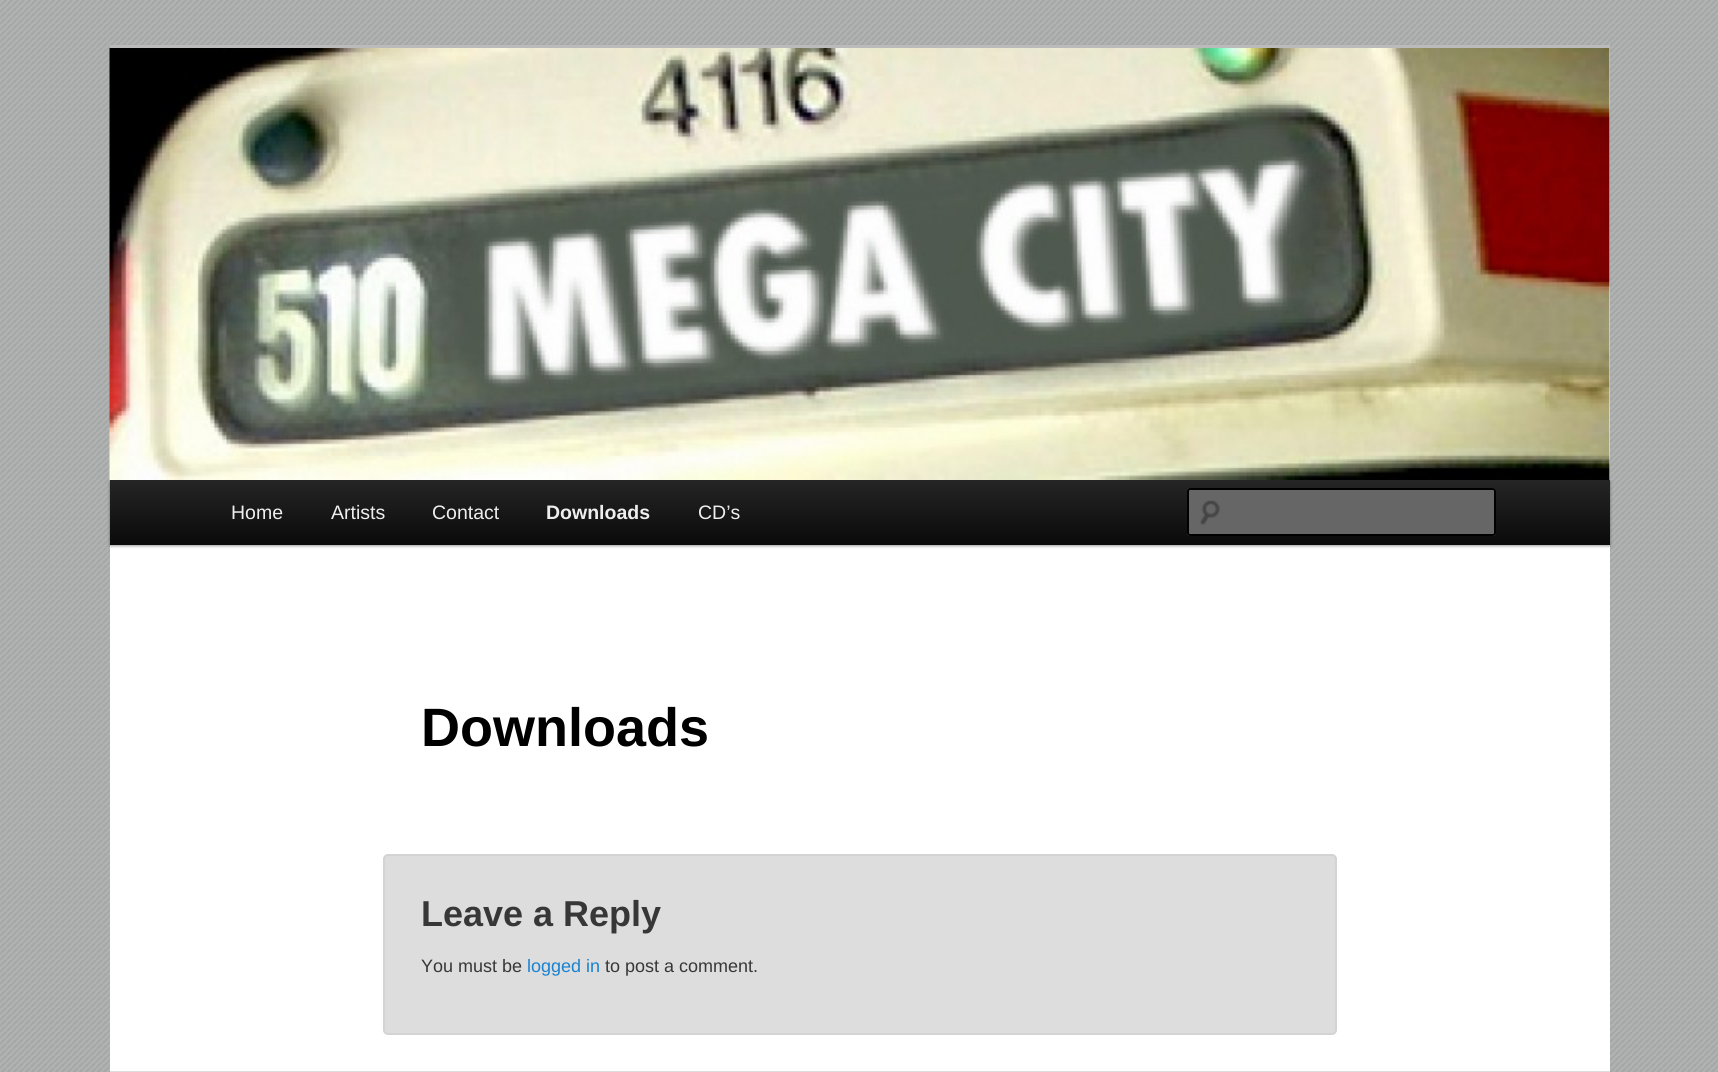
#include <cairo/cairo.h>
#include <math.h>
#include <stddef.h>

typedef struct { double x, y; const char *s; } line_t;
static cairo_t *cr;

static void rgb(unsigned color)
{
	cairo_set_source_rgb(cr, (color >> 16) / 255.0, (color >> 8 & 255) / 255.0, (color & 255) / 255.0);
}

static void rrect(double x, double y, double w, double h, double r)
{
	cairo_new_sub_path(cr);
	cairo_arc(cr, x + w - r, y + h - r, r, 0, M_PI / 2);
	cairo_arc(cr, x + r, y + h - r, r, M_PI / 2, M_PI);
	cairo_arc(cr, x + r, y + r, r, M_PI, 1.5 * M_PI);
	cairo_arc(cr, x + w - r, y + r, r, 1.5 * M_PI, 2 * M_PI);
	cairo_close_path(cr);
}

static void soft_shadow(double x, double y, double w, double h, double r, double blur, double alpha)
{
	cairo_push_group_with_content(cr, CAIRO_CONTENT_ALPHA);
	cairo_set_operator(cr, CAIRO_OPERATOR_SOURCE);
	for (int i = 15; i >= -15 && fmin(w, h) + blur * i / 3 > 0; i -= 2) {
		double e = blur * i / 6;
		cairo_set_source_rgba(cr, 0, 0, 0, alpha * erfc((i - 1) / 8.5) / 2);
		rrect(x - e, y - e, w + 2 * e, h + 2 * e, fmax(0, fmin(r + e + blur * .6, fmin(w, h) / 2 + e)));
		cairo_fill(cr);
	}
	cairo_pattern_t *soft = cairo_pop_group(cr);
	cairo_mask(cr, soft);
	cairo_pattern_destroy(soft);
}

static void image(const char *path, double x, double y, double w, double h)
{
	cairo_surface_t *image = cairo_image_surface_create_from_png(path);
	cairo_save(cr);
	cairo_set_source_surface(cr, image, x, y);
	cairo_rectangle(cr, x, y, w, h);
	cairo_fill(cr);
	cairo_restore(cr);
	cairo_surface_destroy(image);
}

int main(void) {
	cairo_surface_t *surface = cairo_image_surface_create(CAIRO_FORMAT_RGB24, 1718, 1072);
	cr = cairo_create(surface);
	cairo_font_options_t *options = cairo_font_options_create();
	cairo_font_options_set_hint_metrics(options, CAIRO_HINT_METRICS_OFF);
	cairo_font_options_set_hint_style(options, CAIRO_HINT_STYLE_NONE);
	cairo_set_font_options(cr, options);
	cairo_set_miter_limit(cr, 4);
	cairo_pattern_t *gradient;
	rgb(0xffffff);
	cairo_paint(cr);
	image("img/1.png", 0, 0, 1718, 1072);
	rgb(0xffffff);
	cairo_rectangle(cr, 110, 48, 1500, 1023);
	cairo_fill(cr);
	rgb(0xbbbbbb);
	cairo_rectangle(cr, 110, 45, 1500, 3);
	cairo_fill(cr);
	rgb(0x000000);
	soft_shadow(110, 482, 1500, 64, 0, 1.5, 0.4);
	image("img/2.png", 109, 48, 1501, 432);
	gradient = cairo_pattern_create_linear(860, 480, 860, 545);
	cairo_pattern_add_color_stop_rgba(gradient, 0, 0.145, 0.145, 0.145, 1);
	cairo_pattern_add_color_stop_rgba(gradient, 1, 0.039, 0.039, 0.039, 1);
	cairo_set_source(cr, gradient);
	cairo_pattern_destroy(gradient);
	cairo_rectangle(cr, 110, 480, 1500, 65);
	cairo_fill(cr);
	rgb(0x666666);
	rrect(1187, 488, 309, 48, 3);
	cairo_fill(cr);
	image("img/3.png", 1200, 500, 20, 25);
	rgb(0x5c5c5c);
	cairo_new_path(cr);
	cairo_move_to(cr, 1190, 490);
	cairo_line_to(cr, 1492, 490);
	cairo_curve_to(cr, 1493, 490, 1494, 491, 1494, 492);
	cairo_curve_to(cr, 1494, 491, 1494, 489, 1492, 489);
	cairo_line_to(cr, 1190, 489);
	cairo_line_to(cr, 1188, 490);
	cairo_line_to(cr, 1188, 492);
	cairo_curve_to(cr, 1188, 491, 1189, 490, 1190, 490);
	cairo_close_path(cr);
	cairo_fill(cr);
	rrect(1188, 489, 307, 46, 2);
	rgb(0x000000);
	cairo_stroke(cr);
	rgb(0xdddddd);
	rrect(384, 855, 952, 179, 4);
	cairo_fill_preserve(cr);
	rgb(0xd3d3d3);
	cairo_stroke(cr);
	rgb(0xdddddd);
	cairo_rectangle(cr, 110, 1071, 1500, 1);
	cairo_fill(cr);
	cairo_select_font_face(cr, "Liberation Sans", CAIRO_FONT_SLANT_NORMAL, CAIRO_FONT_WEIGHT_NORMAL);
	cairo_set_font_size(cr, 19.5);
	rgb(0xeeeeee);
	{
		static const line_t items[] = {
			{231, 519, "Home"},
			{331, 519, "Artists"},
			{432, 519, "Contact"},
		};
		for (size_t i = 0; i < sizeof items / sizeof *items; i++) {
			cairo_move_to(cr, items[i].x, items[i].y);
			cairo_show_text(cr, items[i].s);
		}
	}
	cairo_select_font_face(cr, "Liberation Sans", CAIRO_FONT_SLANT_NORMAL, CAIRO_FONT_WEIGHT_BOLD);
	cairo_move_to(cr, 546, 519);
	cairo_show_text(cr, "Downloads");
	cairo_select_font_face(cr, "Liberation Sans", CAIRO_FONT_SLANT_NORMAL, CAIRO_FONT_WEIGHT_NORMAL);
	cairo_move_to(cr, 698, 519);
	cairo_show_text(cr, "CD’s");
	cairo_select_font_face(cr, "Liberation Sans", CAIRO_FONT_SLANT_NORMAL, CAIRO_FONT_WEIGHT_BOLD);
	cairo_set_font_size(cr, 54);
	rgb(0x000000);
	cairo_move_to(cr, 421, 746);
	cairo_show_text(cr, "Downloads");
	cairo_set_font_size(cr, 36);
	rgb(0x373737);
	cairo_move_to(cr, 421, 926);
	cairo_show_text(cr, "Leave a Reply");
	cairo_select_font_face(cr, "Liberation Sans", CAIRO_FONT_SLANT_NORMAL, CAIRO_FONT_WEIGHT_NORMAL);
	cairo_set_font_size(cr, 18);
	cairo_move_to(cr, 421, 972);
	cairo_show_text(cr, "You must be");
	rgb(0x1982d1);
	cairo_move_to(cr, 527, 972);
	cairo_show_text(cr, "logged in");
	rgb(0x373737);
	cairo_move_to(cr, 605, 972);
	cairo_show_text(cr, "to post a comment.");
	cairo_surface_write_to_png(surface, "page.png");
	cairo_font_options_destroy(options);
	cairo_destroy(cr);
	cairo_surface_destroy(surface);
	return 0;
}
